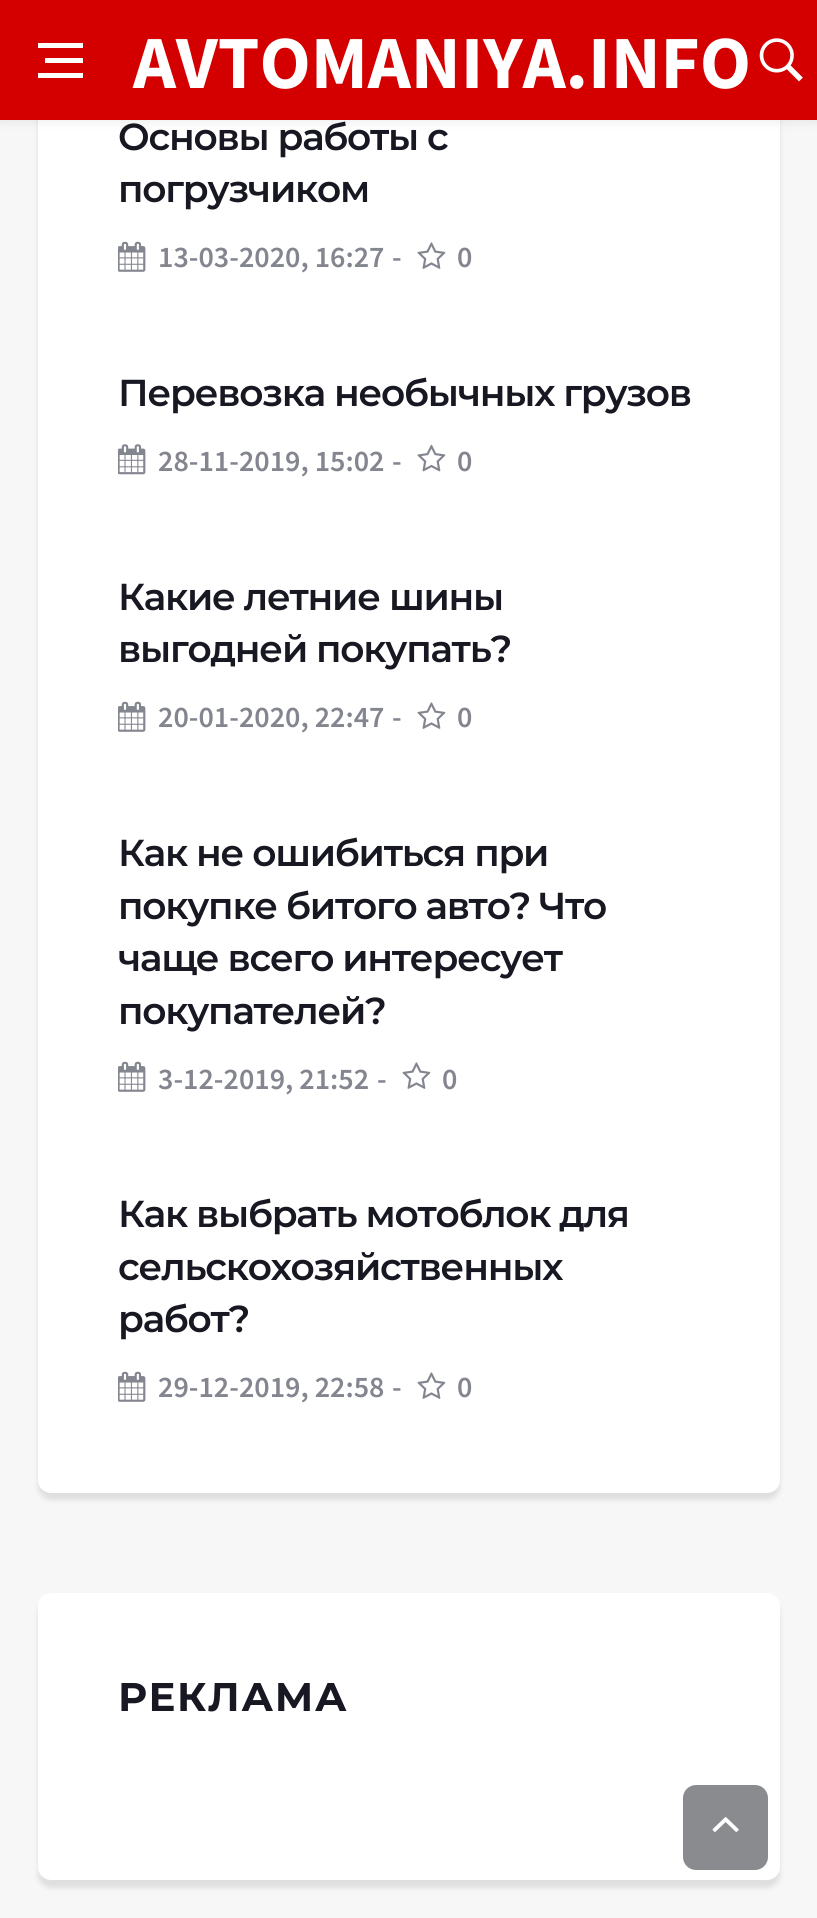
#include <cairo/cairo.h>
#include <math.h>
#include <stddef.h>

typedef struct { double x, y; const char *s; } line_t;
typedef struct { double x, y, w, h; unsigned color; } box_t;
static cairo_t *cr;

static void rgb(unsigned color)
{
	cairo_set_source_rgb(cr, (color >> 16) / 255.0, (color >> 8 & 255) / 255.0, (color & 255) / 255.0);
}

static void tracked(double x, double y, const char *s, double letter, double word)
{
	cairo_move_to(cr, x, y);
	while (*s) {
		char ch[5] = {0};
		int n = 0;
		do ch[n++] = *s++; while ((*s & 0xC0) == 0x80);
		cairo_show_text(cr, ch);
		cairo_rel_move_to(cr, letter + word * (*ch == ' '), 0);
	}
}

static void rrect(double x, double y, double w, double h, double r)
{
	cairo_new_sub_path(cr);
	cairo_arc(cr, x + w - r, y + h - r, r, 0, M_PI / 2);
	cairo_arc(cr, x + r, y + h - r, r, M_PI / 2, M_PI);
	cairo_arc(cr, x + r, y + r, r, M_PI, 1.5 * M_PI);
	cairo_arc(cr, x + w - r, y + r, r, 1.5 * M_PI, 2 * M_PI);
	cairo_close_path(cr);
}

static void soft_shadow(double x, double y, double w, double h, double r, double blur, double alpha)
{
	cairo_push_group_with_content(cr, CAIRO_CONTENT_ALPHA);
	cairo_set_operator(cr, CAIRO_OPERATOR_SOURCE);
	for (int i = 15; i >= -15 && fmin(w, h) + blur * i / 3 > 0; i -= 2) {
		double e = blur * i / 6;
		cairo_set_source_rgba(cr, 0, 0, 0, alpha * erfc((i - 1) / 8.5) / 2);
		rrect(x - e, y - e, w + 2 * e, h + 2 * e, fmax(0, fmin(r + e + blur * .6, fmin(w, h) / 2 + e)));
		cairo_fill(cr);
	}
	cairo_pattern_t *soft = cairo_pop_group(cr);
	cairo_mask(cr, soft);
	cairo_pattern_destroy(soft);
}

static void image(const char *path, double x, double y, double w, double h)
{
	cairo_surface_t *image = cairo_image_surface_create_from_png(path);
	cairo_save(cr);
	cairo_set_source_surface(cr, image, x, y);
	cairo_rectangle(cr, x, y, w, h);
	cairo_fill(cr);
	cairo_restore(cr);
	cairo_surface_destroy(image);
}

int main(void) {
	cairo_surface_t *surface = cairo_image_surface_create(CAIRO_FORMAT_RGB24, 817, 1918);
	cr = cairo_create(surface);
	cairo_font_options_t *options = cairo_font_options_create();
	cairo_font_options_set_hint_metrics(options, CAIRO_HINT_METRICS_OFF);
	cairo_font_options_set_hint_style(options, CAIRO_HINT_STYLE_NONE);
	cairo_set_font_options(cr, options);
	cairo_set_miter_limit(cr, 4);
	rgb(0xf7f7f7);
	cairo_paint(cr);
	rgb(0x000000);
	soft_shadow(38, -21, 742, 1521, 13, 2.5, 0.1);
	rgb(0xffffff);
	rrect(38, -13, 742, 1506, 13);
	cairo_fill(cr);
	rgb(0x000000);
	soft_shadow(0, 0, 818, 120, 0, 6, 0.1);
	{
		static const box_t items[] = {
			{0, 0, 817, 120, 0xd40000},
			{45, 58, 38, 5, 0xffffff},
			{38, 43, 45, 5, 0xffffff},
			{38, 73, 45, 5, 0xffffff},
		};
		for (size_t i = 0; i < sizeof items / sizeof *items; i++) {
			rgb(items[i].color);
			cairo_rectangle(cr, items[i].x, items[i].y, items[i].w, items[i].h);
			cairo_fill(cr);
		}
	}
	image("img/1.png", 759, 38, 44, 44);
	image("img/2.png", 118, 241, 28, 31);
	image("img/3.png", 417, 242, 29, 27);
	image("img/4.png", 118, 444, 28, 31);
	image("img/5.png", 417, 444, 29, 28);
	image("img/2.png", 118, 701, 28, 31);
	image("img/3.png", 417, 702, 29, 27);
	image("img/2.png", 118, 1061, 28, 31);
	image("img/3.png", 402, 1062, 29, 27);
	image("img/2.png", 118, 1371, 28, 31);
	image("img/3.png", 417, 1372, 29, 27);
	rgb(0x000000);
	soft_shadow(38, 1600, 742, 288, 13, 2.5, 0.1);
	rgb(0xffffff);
	rrect(38, 1593, 742, 287, 13);
	cairo_fill(cr);
	cairo_set_source_rgba(cr, 0.09, 0.094, 0.129, 0.5);
	rrect(683, 1785, 85, 85, 13);
	cairo_fill(cr);
	image("img/6.png", 712, 1817, 27, 15);
	cairo_select_font_face(cr, "Source Sans Pro", CAIRO_FONT_SLANT_NORMAL, CAIRO_FONT_WEIGHT_BOLD);
	cairo_set_font_size(cr, 75);
	rgb(0xffffff);
	cairo_move_to(cr, 133, 88);
	cairo_show_text(cr, "AVTOMANIYA.INFO");
	cairo_select_font_face(cr, "Montserrat SemiBold", CAIRO_FONT_SLANT_NORMAL, CAIRO_FONT_WEIGHT_NORMAL);
	cairo_set_font_size(cr, 37.5);
	rgb(0x171821);
	tracked(118, 150, "Основы работы с", -1.25, 0);
	tracked(118, 202, "погрузчиком", -1.25, 0);
	cairo_select_font_face(cr, "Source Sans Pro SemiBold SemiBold", CAIRO_FONT_SLANT_NORMAL, CAIRO_FONT_WEIGHT_NORMAL);
	cairo_set_font_size(cr, 30);
	rgb(0x83858f);
	{
		static const line_t items[] = {
			{158, 267, "13-03-2020, 16:27"},
			{392, 267, "-"},
			{457, 267, "0"},
		};
		for (size_t i = 0; i < sizeof items / sizeof *items; i++) {
			cairo_move_to(cr, items[i].x, items[i].y);
			cairo_show_text(cr, items[i].s);
		}
	}
	cairo_select_font_face(cr, "Montserrat SemiBold", CAIRO_FONT_SLANT_NORMAL, CAIRO_FONT_WEIGHT_NORMAL);
	cairo_set_font_size(cr, 37.5);
	rgb(0x171821);
	tracked(118, 406, "Перевозка необычных грузов", -1.25, 0);
	cairo_select_font_face(cr, "Source Sans Pro SemiBold SemiBold", CAIRO_FONT_SLANT_NORMAL, CAIRO_FONT_WEIGHT_NORMAL);
	cairo_set_font_size(cr, 30);
	rgb(0x83858f);
	{
		static const line_t items[] = {
			{158, 471, "28-11-2019, 15:02"},
			{392, 471, "-"},
			{457, 471, "0"},
		};
		for (size_t i = 0; i < sizeof items / sizeof *items; i++) {
			cairo_move_to(cr, items[i].x, items[i].y);
			cairo_show_text(cr, items[i].s);
		}
	}
	cairo_select_font_face(cr, "Montserrat SemiBold", CAIRO_FONT_SLANT_NORMAL, CAIRO_FONT_WEIGHT_NORMAL);
	cairo_set_font_size(cr, 37.5);
	rgb(0x171821);
	tracked(118, 610, "Какие летние шины", -1.25, 0);
	tracked(118, 662, "выгодней покупать?", -1.25, 0);
	cairo_select_font_face(cr, "Source Sans Pro SemiBold SemiBold", CAIRO_FONT_SLANT_NORMAL, CAIRO_FONT_WEIGHT_NORMAL);
	cairo_set_font_size(cr, 30);
	rgb(0x83858f);
	{
		static const line_t items[] = {
			{158, 727, "20-01-2020, 22:47"},
			{392, 727, "-"},
			{457, 727, "0"},
		};
		for (size_t i = 0; i < sizeof items / sizeof *items; i++) {
			cairo_move_to(cr, items[i].x, items[i].y);
			cairo_show_text(cr, items[i].s);
		}
	}
	cairo_select_font_face(cr, "Montserrat SemiBold", CAIRO_FONT_SLANT_NORMAL, CAIRO_FONT_WEIGHT_NORMAL);
	cairo_set_font_size(cr, 37.5);
	rgb(0x171821);
	{
		static const line_t items[] = {
			{118, 866, "Как не ошибиться при"},
			{118, 919, "покупке битого авто? Что"},
			{118, 971, "чаще всего интересует"},
			{118, 1024, "покупателей?"},
		};
		for (size_t i = 0; i < sizeof items / sizeof *items; i++) {
			tracked(items[i].x, items[i].y, items[i].s, -1.25, 0);
		}
	}
	cairo_select_font_face(cr, "Source Sans Pro SemiBold SemiBold", CAIRO_FONT_SLANT_NORMAL, CAIRO_FONT_WEIGHT_NORMAL);
	cairo_set_font_size(cr, 30);
	rgb(0x83858f);
	{
		static const line_t items[] = {
			{158, 1089, "3-12-2019, 21:52"},
			{377, 1089, "-"},
			{442, 1089, "0"},
		};
		for (size_t i = 0; i < sizeof items / sizeof *items; i++) {
			cairo_move_to(cr, items[i].x, items[i].y);
			cairo_show_text(cr, items[i].s);
		}
	}
	cairo_select_font_face(cr, "Montserrat SemiBold", CAIRO_FONT_SLANT_NORMAL, CAIRO_FONT_WEIGHT_NORMAL);
	cairo_set_font_size(cr, 37.5);
	rgb(0x171821);
	{
		static const line_t items[] = {
			{118, 1227, "Как выбрать мотоблок для"},
			{118, 1280, "сельскохозяйственных"},
			{118, 1332, "работ?"},
		};
		for (size_t i = 0; i < sizeof items / sizeof *items; i++) {
			tracked(items[i].x, items[i].y, items[i].s, -1.25, 0);
		}
	}
	cairo_select_font_face(cr, "Source Sans Pro SemiBold SemiBold", CAIRO_FONT_SLANT_NORMAL, CAIRO_FONT_WEIGHT_NORMAL);
	cairo_set_font_size(cr, 30);
	rgb(0x83858f);
	{
		static const line_t items[] = {
			{158, 1397, "29-12-2019, 22:58"},
			{392, 1397, "-"},
			{457, 1397, "0"},
		};
		for (size_t i = 0; i < sizeof items / sizeof *items; i++) {
			cairo_move_to(cr, items[i].x, items[i].y);
			cairo_show_text(cr, items[i].s);
		}
	}
	cairo_select_font_face(cr, "Montserrat", CAIRO_FONT_SLANT_NORMAL, CAIRO_FONT_WEIGHT_BOLD);
	cairo_set_font_size(cr, 40);
	rgb(0x171821);
	tracked(118, 1711, "РЕКЛАМА", 1.5, 0);
	cairo_surface_write_to_png(surface, "page.png");
	cairo_font_options_destroy(options);
	cairo_destroy(cr);
	cairo_surface_destroy(surface);
	return 0;
}
